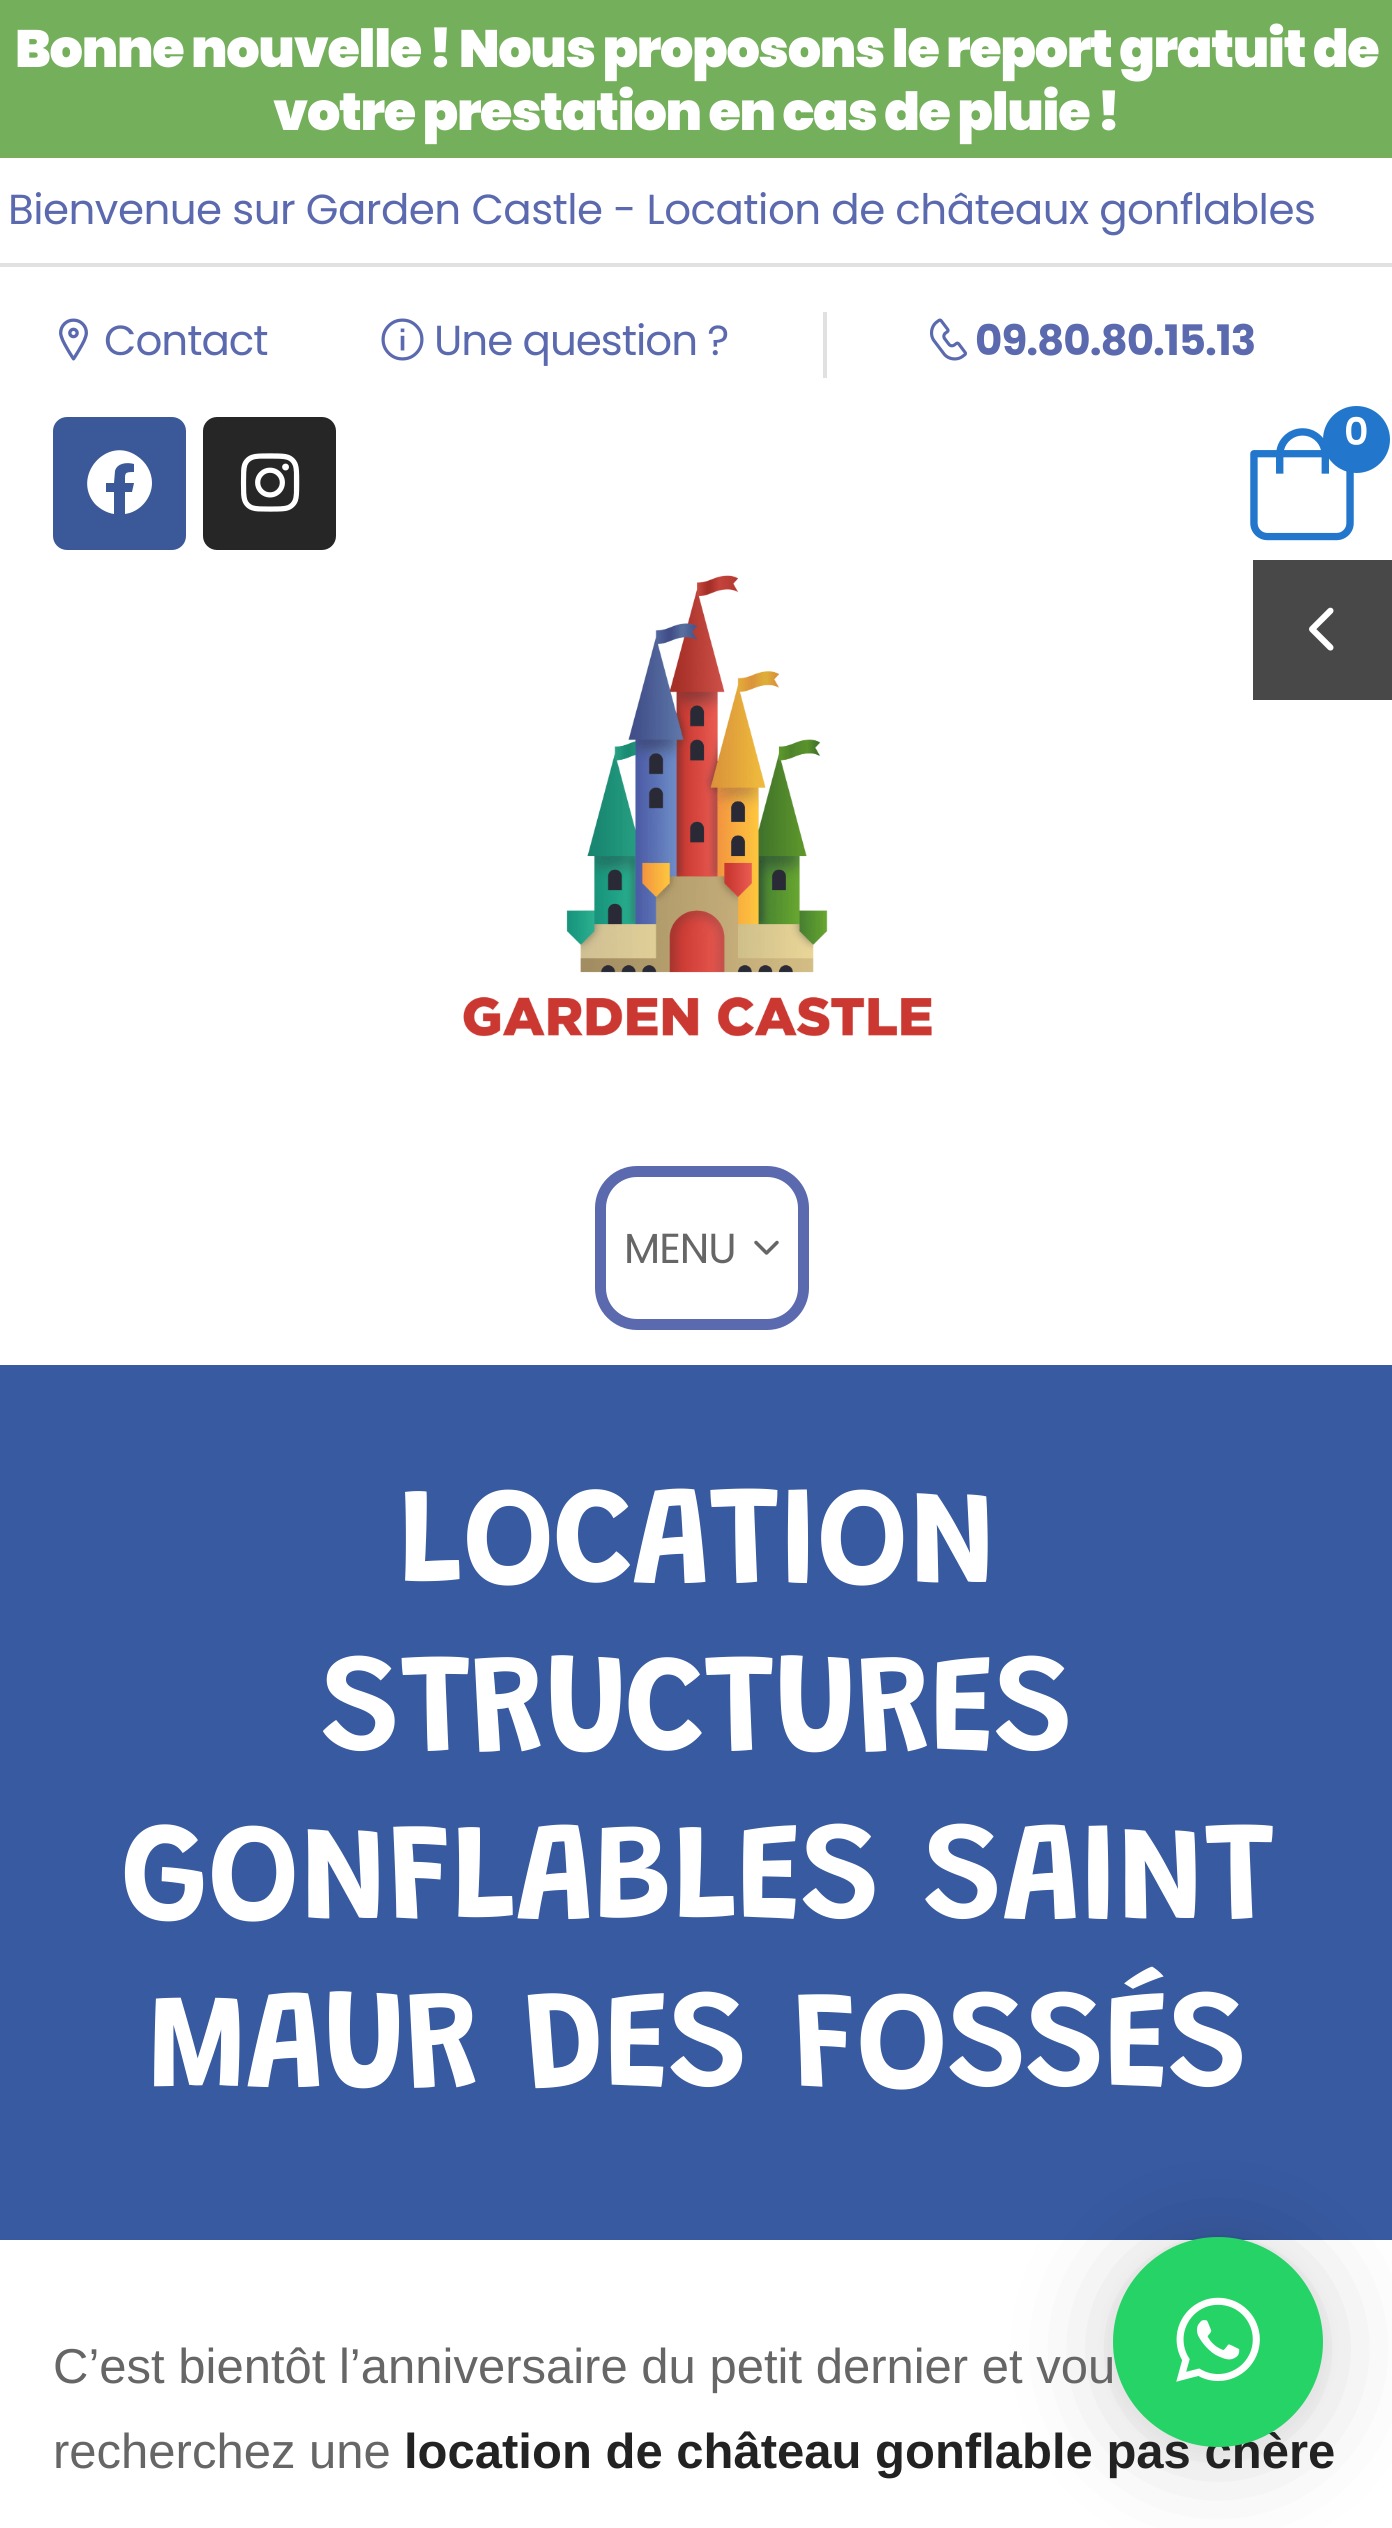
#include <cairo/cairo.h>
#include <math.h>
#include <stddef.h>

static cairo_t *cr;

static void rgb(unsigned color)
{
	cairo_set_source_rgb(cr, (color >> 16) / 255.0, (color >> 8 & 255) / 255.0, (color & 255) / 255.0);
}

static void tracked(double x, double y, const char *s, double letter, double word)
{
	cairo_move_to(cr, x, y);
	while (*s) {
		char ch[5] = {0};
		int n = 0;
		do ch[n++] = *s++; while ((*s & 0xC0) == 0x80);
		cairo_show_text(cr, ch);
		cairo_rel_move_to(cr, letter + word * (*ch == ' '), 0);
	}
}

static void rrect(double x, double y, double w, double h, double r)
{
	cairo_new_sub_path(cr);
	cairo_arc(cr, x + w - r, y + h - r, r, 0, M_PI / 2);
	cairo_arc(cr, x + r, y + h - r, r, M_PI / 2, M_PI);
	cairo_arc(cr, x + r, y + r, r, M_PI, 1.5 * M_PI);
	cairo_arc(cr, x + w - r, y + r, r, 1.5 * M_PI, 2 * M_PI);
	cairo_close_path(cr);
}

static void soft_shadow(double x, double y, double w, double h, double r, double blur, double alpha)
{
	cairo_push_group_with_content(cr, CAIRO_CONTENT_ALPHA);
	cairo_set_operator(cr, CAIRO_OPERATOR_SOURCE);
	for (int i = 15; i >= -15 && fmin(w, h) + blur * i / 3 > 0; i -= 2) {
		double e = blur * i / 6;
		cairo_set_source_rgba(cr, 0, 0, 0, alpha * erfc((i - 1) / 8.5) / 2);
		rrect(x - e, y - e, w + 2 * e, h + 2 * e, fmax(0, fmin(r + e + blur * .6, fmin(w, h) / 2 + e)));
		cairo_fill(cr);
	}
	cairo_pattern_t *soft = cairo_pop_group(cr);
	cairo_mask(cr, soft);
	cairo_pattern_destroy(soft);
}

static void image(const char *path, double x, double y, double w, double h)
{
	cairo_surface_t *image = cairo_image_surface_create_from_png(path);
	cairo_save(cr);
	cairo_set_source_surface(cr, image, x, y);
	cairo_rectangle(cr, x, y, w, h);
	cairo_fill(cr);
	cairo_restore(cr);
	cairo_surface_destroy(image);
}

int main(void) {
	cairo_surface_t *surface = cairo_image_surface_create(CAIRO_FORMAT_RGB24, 1392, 2528);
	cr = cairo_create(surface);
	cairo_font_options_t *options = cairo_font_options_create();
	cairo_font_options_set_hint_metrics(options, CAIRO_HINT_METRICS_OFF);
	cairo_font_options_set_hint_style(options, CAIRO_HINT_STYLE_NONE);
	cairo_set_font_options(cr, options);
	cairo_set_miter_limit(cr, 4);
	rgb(0xffffff);
	cairo_paint(cr);
	rgb(0x74af5b);
	cairo_rectangle(cr, 0, 0, 1392, 158);
	cairo_fill(cr);
	rgb(0xe1e1e1);
	cairo_rectangle(cr, 0, 263, 1392, 4);
	cairo_fill(cr);
	image("img/1.png", 59, 318, 29, 43);
	image("img/2.png", 381, 318, 43, 43);
	cairo_rectangle(cr, 823, 312, 4, 66);
	cairo_fill(cr);
	image("img/3.png", 930, 318, 37, 43);
	rgb(0x3b5998);
	rrect(53, 417, 133, 133, 14);
	cairo_fill(cr);
	rgb(0xffffff);
	cairo_new_path(cr);
	cairo_move_to(cr, 152, 483);
	cairo_curve_to(cr, 152, 498, 140, 512, 125, 514);
	cairo_line_to(cr, 125, 492);
	cairo_line_to(cr, 132, 492);
	cairo_line_to(cr, 134, 483);
	cairo_line_to(cr, 125, 483);
	cairo_curve_to(cr, 125, 473, 124, 472, 134, 472);
	cairo_line_to(cr, 134, 464);
	cairo_curve_to(cr, 127, 462, 117, 463, 115, 471);
	cairo_line_to(cr, 114, 483);
	cairo_line_to(cr, 106, 483);
	cairo_line_to(cr, 106, 492);
	cairo_line_to(cr, 114, 492);
	cairo_line_to(cr, 114, 514);
	cairo_curve_to(cr, 107, 513, 100, 509, 95, 504);
	cairo_curve_to(cr, 71, 476, 107, 435, 137, 456);
	cairo_curve_to(cr, 146, 462, 152, 472, 152, 483);
	cairo_close_path(cr);
	cairo_fill(cr);
	rgb(0x262626);
	rrect(203, 417, 133, 133, 14);
	cairo_fill(cr);
	image("img/4.png", 240, 453, 60, 59);
	image("img/5.png", 1250, 428, 104, 113);
	rgb(0x2277cc);
	cairo_arc(cr, 1356.5, 439.5, 33.5, 0, 2 * M_PI);
	cairo_fill(cr);
	image("img/6.png", 463, 575, 469, 462);
	rrect(600.5, 1171.5, 203, 153, 36.5);
	rgb(0x5b69af);
	cairo_set_line_width(cr, 11);
	cairo_stroke(cr);
	image("img/7.png", 754, 1240, 25, 15);
	rgb(0x385aa1);
	cairo_rectangle(cr, 0, 1365, 1392, 875);
	cairo_fill(cr);
	rgb(0x494848);
	cairo_rectangle(cr, 1253, 560, 139, 140);
	cairo_fill(cr);
	image("img/8.png", 1309, 607, 25, 44);
	rgb(0x000000);
	soft_shadow(1113, 2244, 210, 210, 105, 56, 0.16);
	soft_shadow(1113, 2240, 210, 210, 105, 10.5, 0.06);
	cairo_select_font_face(cr, "Poppins Black", CAIRO_FONT_SLANT_NORMAL, CAIRO_FONT_WEIGHT_NORMAL);
	cairo_set_font_size(cr, 52.5);
	rgb(0xffffff);
	tracked(15, 67, "Bonne nouvelle ! Nous proposons le report gratuit de", -1.3, 0);
	tracked(273, 130, "votre prestation en cas de pluie !", -1.3, 0);
	cairo_select_font_face(cr, "Poppins", CAIRO_FONT_SLANT_NORMAL, CAIRO_FONT_WEIGHT_NORMAL);
	cairo_set_font_size(cr, 42);
	rgb(0x5b69af);
	tracked(8, 224, "Bienvenue sur Garden Castle - Location de châteaux gonflables", -0.53, 0);
	tracked(104, 355, "Contact", -1, 0);
	tracked(434, 355, "Une question ?", -1, 0);
	cairo_select_font_face(cr, "Poppins", CAIRO_FONT_SLANT_NORMAL, CAIRO_FONT_WEIGHT_BOLD);
	tracked(975, 355, "09.80.80.15.13", -1, 0);
	cairo_select_font_face(cr, "Poppins SemiBold", CAIRO_FONT_SLANT_NORMAL, CAIRO_FONT_WEIGHT_NORMAL);
	cairo_set_font_size(cr, 38);
	rgb(0xffffff);
	tracked(1344, 445, "0", -1, 0);
	cairo_select_font_face(cr, "Poppins", CAIRO_FONT_SLANT_NORMAL, CAIRO_FONT_WEIGHT_NORMAL);
	cairo_set_font_size(cr, 42);
	rgb(0x666666);
	tracked(624, 1263, "MENU", -1, 0);
	cairo_select_font_face(cr, "Grandstander SemiBold", CAIRO_FONT_SLANT_NORMAL, CAIRO_FONT_WEIGHT_NORMAL);
	cairo_set_font_size(cr, 140);
	rgb(0xffffff);
	tracked(397, 1582, "LOCATION", -2.5, 0);
	tracked(321, 1750, "STRUCTURES", -2.5, 0);
	tracked(120, 1918, "GONFLABLES SAINT", -2.5, 4);
	tracked(146, 2086, "MAUR DES FOSSÉS", -2.5, 4);
	cairo_select_font_face(cr, "Liberation Sans", CAIRO_FONT_SLANT_NORMAL, CAIRO_FONT_WEIGHT_NORMAL);
	cairo_set_font_size(cr, 49);
	rgb(0x666666);
	cairo_move_to(cr, 53, 2383);
	cairo_show_text(cr, "C’est bientôt l’anniversaire du petit dernier et vou");
	cairo_move_to(cr, 53, 2468);
	cairo_show_text(cr, "recherchez une");
	cairo_select_font_face(cr, "Liberation Sans", CAIRO_FONT_SLANT_NORMAL, CAIRO_FONT_WEIGHT_BOLD);
	rgb(0x222222);
	cairo_move_to(cr, 404, 2468);
	cairo_show_text(cr, "location de château gonflable pas chère");
	rgb(0x25d366);
	cairo_new_path(cr);
	cairo_arc(cr, 1218, 2342, 105, 0, 2 * M_PI);
	cairo_fill(cr);
	image("img/9.png", 1176, 2297, 84, 85);
	cairo_surface_write_to_png(surface, "page.png");
	cairo_font_options_destroy(options);
	cairo_destroy(cr);
	cairo_surface_destroy(surface);
	return 0;
}
